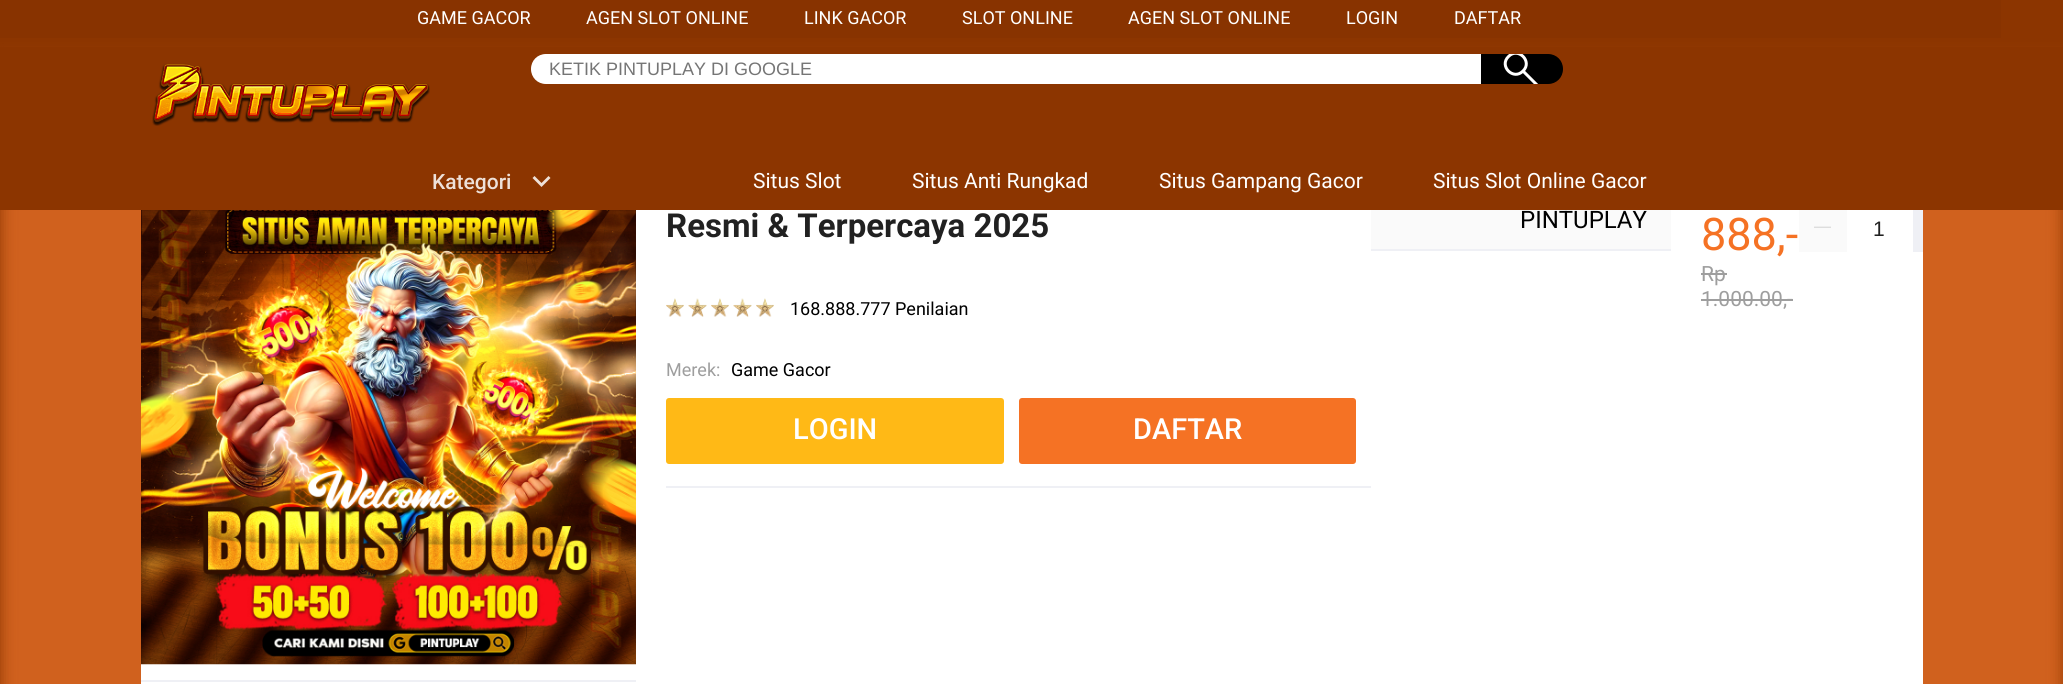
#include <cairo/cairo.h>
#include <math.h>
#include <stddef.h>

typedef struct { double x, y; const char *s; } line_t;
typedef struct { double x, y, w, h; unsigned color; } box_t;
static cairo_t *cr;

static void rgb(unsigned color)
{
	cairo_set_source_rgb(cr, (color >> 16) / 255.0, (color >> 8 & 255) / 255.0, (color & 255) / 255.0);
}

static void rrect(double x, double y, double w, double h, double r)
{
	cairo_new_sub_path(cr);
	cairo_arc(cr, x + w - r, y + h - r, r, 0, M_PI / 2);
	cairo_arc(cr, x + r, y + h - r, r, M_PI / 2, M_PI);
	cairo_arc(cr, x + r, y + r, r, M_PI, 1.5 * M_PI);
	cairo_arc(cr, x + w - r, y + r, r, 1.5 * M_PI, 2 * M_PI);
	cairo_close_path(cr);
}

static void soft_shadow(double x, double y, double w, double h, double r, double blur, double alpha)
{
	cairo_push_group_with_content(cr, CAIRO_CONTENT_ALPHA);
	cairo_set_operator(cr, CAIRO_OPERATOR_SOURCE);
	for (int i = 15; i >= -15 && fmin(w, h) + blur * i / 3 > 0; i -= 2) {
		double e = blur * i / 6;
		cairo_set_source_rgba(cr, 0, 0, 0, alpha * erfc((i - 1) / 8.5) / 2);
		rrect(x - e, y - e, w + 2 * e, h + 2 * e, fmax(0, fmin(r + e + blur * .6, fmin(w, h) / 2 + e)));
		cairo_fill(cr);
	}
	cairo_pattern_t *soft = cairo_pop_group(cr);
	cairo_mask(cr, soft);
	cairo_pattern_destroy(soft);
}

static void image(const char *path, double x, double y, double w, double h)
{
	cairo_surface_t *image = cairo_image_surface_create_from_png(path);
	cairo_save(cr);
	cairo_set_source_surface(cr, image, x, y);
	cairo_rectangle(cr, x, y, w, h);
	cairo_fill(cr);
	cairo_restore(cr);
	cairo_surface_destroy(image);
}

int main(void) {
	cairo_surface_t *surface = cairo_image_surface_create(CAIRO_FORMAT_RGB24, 2063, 684);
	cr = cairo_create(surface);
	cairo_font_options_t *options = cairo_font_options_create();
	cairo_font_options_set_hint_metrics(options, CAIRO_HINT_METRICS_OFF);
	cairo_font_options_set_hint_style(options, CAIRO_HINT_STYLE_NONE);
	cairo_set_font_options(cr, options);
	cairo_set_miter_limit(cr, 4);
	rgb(0x8c3500);
	cairo_paint(cr);
	rgb(0xd0611e);
	soft_shadow(0, 60, 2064, 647, 0, 7.5, 1);
	rgb(0x8c3500);
	cairo_rectangle(cr, 0, 47, 2063, 163);
	cairo_fill(cr);
	rgb(0x883300);
	cairo_rectangle(cr, 0, 0, 2001, 38);
	cairo_fill(cr);
	image("img/1.png", 152, 63, 278, 63);
	rgb(0xffffff);
	cairo_new_path(cr);
	cairo_move_to(cr, 546, 54);
	cairo_line_to(cr, 1481, 54);
	cairo_line_to(cr, 1481, 84);
	cairo_line_to(cr, 546, 84);
	cairo_curve_to(cr, 537.5, 84, 531, 77.5, 531, 69);
	cairo_curve_to(cr, 531, 60.5, 537.5, 54, 546, 54);
	cairo_close_path(cr);
	cairo_fill(cr);
	rgb(0x000000);
	cairo_new_path(cr);
	cairo_move_to(cr, 1481, 54);
	cairo_line_to(cr, 1548, 54);
	cairo_curve_to(cr, 1556.5, 54, 1563, 60.5, 1563, 69);
	cairo_curve_to(cr, 1563, 77.5, 1556.5, 84, 1548, 84);
	cairo_line_to(cr, 1481, 84);
	cairo_close_path(cr);
	cairo_fill(cr);
	cairo_save(cr);
	rrect(531, 54, 1032, 30, 15);
	cairo_clip(cr);
	cairo_new_path(cr);
	cairo_move_to(cr, 1523, 71);
	cairo_curve_to(cr, 1533, 61.5, 1518, 46.5, 1508.5, 56.5);
	cairo_curve_to(cr, 1498.5, 66, 1513.5, 81, 1523, 71);
	cairo_close_path(cr);
	cairo_move_to(cr, 1523.5, 71.5);
	cairo_line_to(cr, 1537, 85);
	rgb(0xffffff);
	cairo_set_line_width(cr, 3);
	cairo_set_line_cap(cr, CAIRO_LINE_CAP_ROUND);
	cairo_set_line_join(cr, CAIRO_LINE_JOIN_ROUND);
	cairo_stroke(cr);
	cairo_restore(cr);
	rgb(0xeee1d9);
	cairo_new_path(cr);
	cairo_move_to(cr, 548.5, 176);
	cairo_line_to(cr, 550.5, 178);
	cairo_line_to(cr, 541.5, 187);
	cairo_line_to(cr, 532.5, 178);
	cairo_line_to(cr, 534.5, 176);
	cairo_line_to(cr, 541.5, 183);
	cairo_close_path(cr);
	cairo_fill(cr);
	rgb(0xffffff);
	cairo_rectangle(cr, 141, 210, 1782, 474);
	cairo_fill(cr);
	rgb(0xeff0f5);
	cairo_rectangle(cr, 141, 680, 495, 2);
	cairo_fill(cr);
	image("img/2.png", 141, 210, 495, 455);
	image("img/3.png", 666, 298, 18, 19);
	image("img/4.png", 688, 298, 19, 19);
	image("img/5.png", 711, 298, 18, 19);
	image("img/4.png", 733, 298, 19, 19);
	image("img/6.png", 756, 298, 18, 19);
	cairo_rectangle(cr, 666, 486, 705, 2);
	cairo_fill(cr);
	rgb(0xffb916);
	rrect(666, 398, 338, 66, 3);
	cairo_fill(cr);
	rgb(0xf57224);
	rrect(1019, 398, 337, 66, 3);
	cairo_fill(cr);
	{
		static const box_t items[] = {
			{1371, 210, 300, 39, 0xfafafa},
			{1371, 249, 300, 2, 0xeff0f5},
			{1701, 273, 26, 2, 0x9e9e9e},
			{1701, 299, 92, 2, 0x9e9e9e},
			{1799, 210, 48, 42, 0xfafafa},
		};
		for (size_t i = 0; i < sizeof items / sizeof *items; i++) {
			rgb(items[i].color);
			cairo_rectangle(cr, items[i].x, items[i].y, items[i].w, items[i].h);
			cairo_fill(cr);
		}
	}
	image("img/7.png", 1814, 226, 17, 2);
	rgb(0xeff0f5);
	cairo_rectangle(cr, 1913, 210, 10, 42);
	cairo_fill(cr);
	cairo_select_font_face(cr, "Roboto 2", CAIRO_FONT_SLANT_NORMAL, CAIRO_FONT_WEIGHT_NORMAL);
	cairo_set_font_size(cr, 18);
	rgb(0xffffff);
	{
		static const line_t items[] = {
			{417, 24, "GAME GACOR"},
			{586, 24, "AGEN SLOT ONLINE"},
			{804, 24, "LINK GACOR"},
			{962, 24, "SLOT ONLINE"},
			{1128, 24, "AGEN SLOT ONLINE"},
			{1346, 24, "LOGIN"},
			{1454, 24, "DAFTAR"},
		};
		for (size_t i = 0; i < sizeof items / sizeof *items; i++) {
			cairo_move_to(cr, items[i].x, items[i].y);
			cairo_show_text(cr, items[i].s);
		}
	}
	cairo_select_font_face(cr, "Liberation Sans", CAIRO_FONT_SLANT_NORMAL, CAIRO_FONT_WEIGHT_NORMAL);
	rgb(0x757575);
	cairo_move_to(cr, 549, 75);
	cairo_show_text(cr, "KETIK PINTUPLAY DI GOOGLE");
	cairo_select_font_face(cr, "Roboto 2 Medium", CAIRO_FONT_SLANT_NORMAL, CAIRO_FONT_WEIGHT_NORMAL);
	cairo_set_font_size(cr, 21);
	rgb(0xeee1d9);
	cairo_move_to(cr, 432, 189);
	cairo_show_text(cr, "Kategori");
	cairo_select_font_face(cr, "Roboto 2", CAIRO_FONT_SLANT_NORMAL, CAIRO_FONT_WEIGHT_NORMAL);
	rgb(0xffffff);
	{
		static const line_t items[] = {
			{753, 188, "Situs Slot"},
			{912, 188, "Situs Anti Rungkad"},
			{1159, 188, "Situs Gampang Gacor"},
			{1433, 188, "Situs Slot Online Gacor"},
		};
		for (size_t i = 0; i < sizeof items / sizeof *items; i++) {
			cairo_move_to(cr, items[i].x, items[i].y);
			cairo_show_text(cr, items[i].s);
		}
	}
	cairo_select_font_face(cr, "Roboto", CAIRO_FONT_SLANT_NORMAL, CAIRO_FONT_WEIGHT_BOLD);
	cairo_set_font_size(cr, 33);
	rgb(0x212121);
	cairo_move_to(cr, 666, 237);
	cairo_show_text(cr, "Resmi & Terpercaya 2025");
	cairo_select_font_face(cr, "Roboto", CAIRO_FONT_SLANT_NORMAL, CAIRO_FONT_WEIGHT_NORMAL);
	cairo_set_font_size(cr, 18);
	rgb(0x000000);
	cairo_move_to(cr, 790, 315);
	cairo_show_text(cr, "168.888.777 Penilaian");
	rgb(0x9e9e9e);
	cairo_move_to(cr, 666, 376);
	cairo_show_text(cr, "Merek:");
	rgb(0x000000);
	cairo_move_to(cr, 731, 376);
	cairo_show_text(cr, "Game Gacor");
	cairo_select_font_face(cr, "Roboto Medium", CAIRO_FONT_SLANT_NORMAL, CAIRO_FONT_WEIGHT_NORMAL);
	cairo_set_font_size(cr, 29);
	rgb(0xffffff);
	cairo_move_to(cr, 793, 439);
	cairo_show_text(cr, "LOGIN");
	cairo_move_to(cr, 1133, 439);
	cairo_show_text(cr, "DAFTAR");
	cairo_select_font_face(cr, "Roboto", CAIRO_FONT_SLANT_NORMAL, CAIRO_FONT_WEIGHT_NORMAL);
	cairo_set_font_size(cr, 24);
	rgb(0x000000);
	cairo_move_to(cr, 1520, 228);
	cairo_show_text(cr, "PINTUPLAY");
	cairo_set_font_size(cr, 45);
	rgb(0xf57224);
	cairo_move_to(cr, 1701, 250);
	cairo_show_text(cr, "888,-");
	cairo_set_font_size(cr, 21);
	rgb(0x9e9e9e);
	cairo_move_to(cr, 1701, 281);
	cairo_show_text(cr, "Rp");
	cairo_move_to(cr, 1701, 306);
	cairo_show_text(cr, "1.000.00,-");
	cairo_select_font_face(cr, "Liberation Sans", CAIRO_FONT_SLANT_NORMAL, CAIRO_FONT_WEIGHT_NORMAL);
	rgb(0x212121);
	cairo_move_to(cr, 1873, 236);
	cairo_show_text(cr, "1");
	cairo_surface_write_to_png(surface, "page.png");
	cairo_font_options_destroy(options);
	cairo_destroy(cr);
	cairo_surface_destroy(surface);
	return 0;
}
